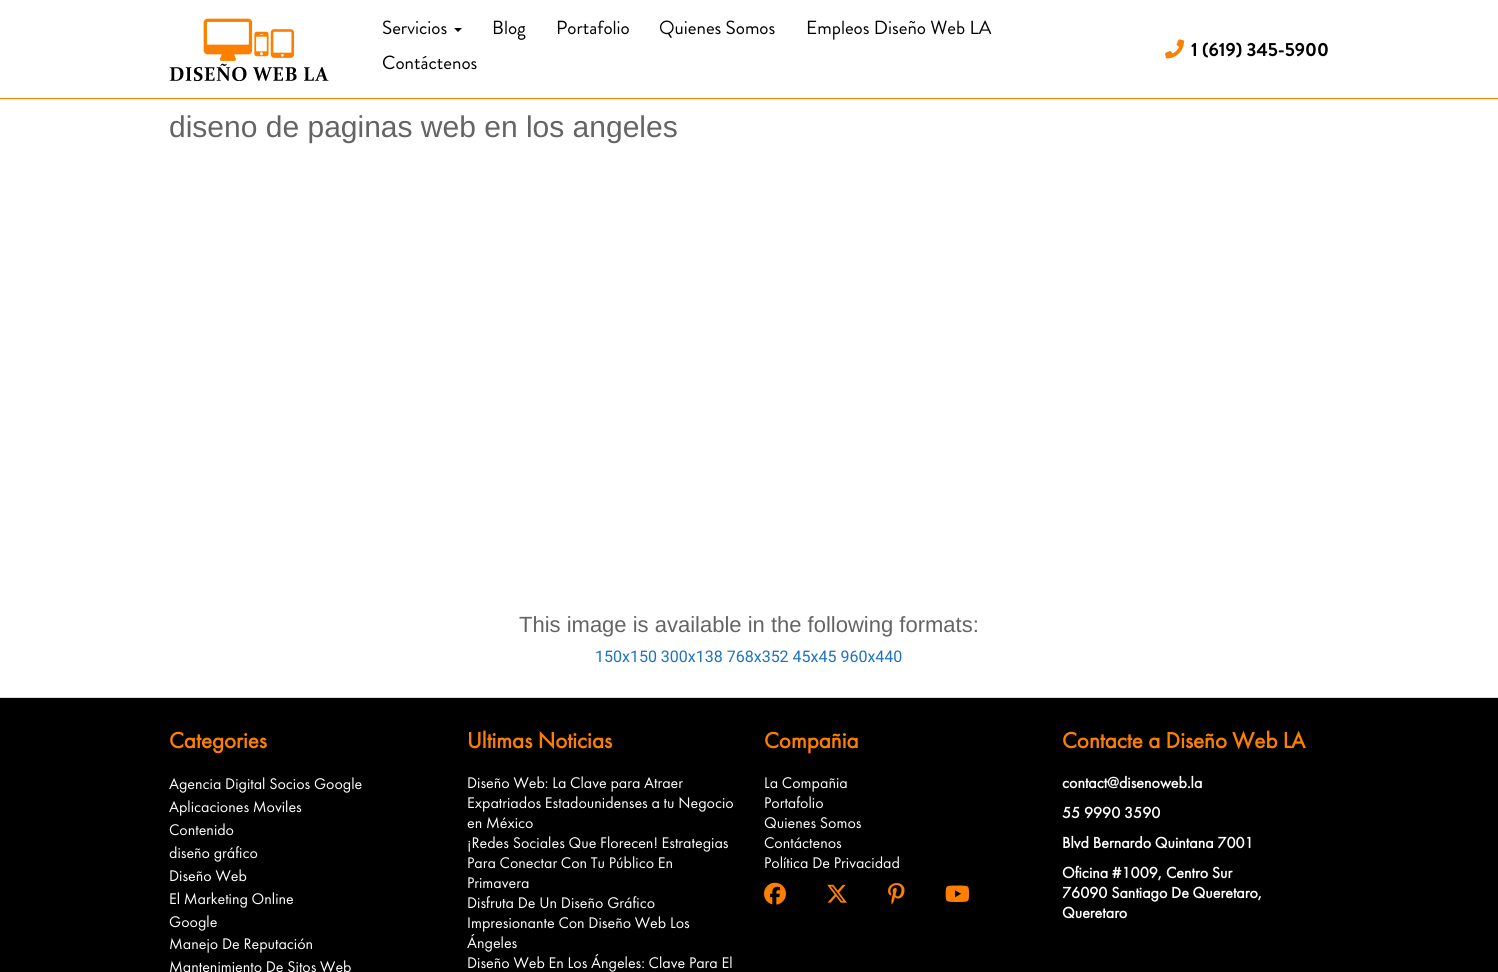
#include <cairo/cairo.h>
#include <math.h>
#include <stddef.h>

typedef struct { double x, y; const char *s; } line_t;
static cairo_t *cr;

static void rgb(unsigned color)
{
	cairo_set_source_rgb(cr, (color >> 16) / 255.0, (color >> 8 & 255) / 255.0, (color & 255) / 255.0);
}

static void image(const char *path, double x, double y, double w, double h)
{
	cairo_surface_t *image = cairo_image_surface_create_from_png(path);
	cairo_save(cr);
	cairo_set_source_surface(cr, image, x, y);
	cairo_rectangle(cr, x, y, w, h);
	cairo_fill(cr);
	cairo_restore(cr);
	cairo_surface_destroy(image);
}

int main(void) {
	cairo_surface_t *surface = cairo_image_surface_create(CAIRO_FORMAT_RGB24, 1498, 972);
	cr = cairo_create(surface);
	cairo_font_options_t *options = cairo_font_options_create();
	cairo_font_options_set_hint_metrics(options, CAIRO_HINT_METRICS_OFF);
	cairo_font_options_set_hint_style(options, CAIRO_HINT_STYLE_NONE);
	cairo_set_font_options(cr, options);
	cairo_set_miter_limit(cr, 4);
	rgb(0xffffff);
	cairo_paint(cr);
	rgb(0xfd7f00);
	cairo_rectangle(cr, 0, 98, 1498, 1);
	cairo_fill(cr);
	image("img/1.png", 169, 18, 160, 63);
	rgb(0x000000);
	cairo_new_path(cr);
	cairo_move_to(cr, 454, 28);
	cairo_line_to(cr, 462, 28);
	cairo_line_to(cr, 458, 32);
	cairo_close_path(cr);
	cairo_fill(cr);
	image("img/2.png", 1165, 39, 19, 20);
	rgb(0xdedede);
	cairo_rectangle(cr, 0, 697, 1498, 1);
	cairo_fill(cr);
	rgb(0x000000);
	cairo_rectangle(cr, 0, 698, 1498, 274);
	cairo_fill(cr);
	image("img/3.png", 764, 882, 22, 23);
	image("img/4.png", 827, 884, 20, 19);
	image("img/5.png", 888, 883, 17, 22);
	image("img/6.png", 945, 885, 25, 17);
	cairo_select_font_face(cr, "Brandon Grotesque", CAIRO_FONT_SLANT_NORMAL, CAIRO_FONT_WEIGHT_NORMAL);
	cairo_set_font_size(cr, 19);
	{
		static const line_t items[] = {
			{382, 34, "Servicios"},
			{492, 34, "Blog"},
			{556, 34, "Portafolio"},
			{659, 34, "Quienes Somos"},
			{806, 34, "Empleos Diseño Web LA"},
			{382, 69, "Contáctenos"},
		};
		for (size_t i = 0; i < sizeof items / sizeof *items; i++) {
			cairo_move_to(cr, items[i].x, items[i].y);
			cairo_show_text(cr, items[i].s);
		}
	}
	cairo_select_font_face(cr, "Brandon Grotesque", CAIRO_FONT_SLANT_NORMAL, CAIRO_FONT_WEIGHT_BOLD);
	cairo_move_to(cr, 1191, 56);
	cairo_show_text(cr, "1 (619) 345-5900");
	cairo_select_font_face(cr, "Liberation Sans", CAIRO_FONT_SLANT_NORMAL, CAIRO_FONT_WEIGHT_NORMAL);
	cairo_set_font_size(cr, 30);
	rgb(0x646464);
	cairo_move_to(cr, 169, 137);
	cairo_show_text(cr, "diseno de paginas web en los angeles");
	cairo_set_font_size(cr, 22);
	cairo_move_to(cr, 519, 632);
	cairo_show_text(cr, "This image is available in the following formats:");
	cairo_select_font_face(cr, "Roboto", CAIRO_FONT_SLANT_NORMAL, CAIRO_FONT_WEIGHT_NORMAL);
	cairo_set_font_size(cr, 16);
	rgb(0x1e73be);
	cairo_move_to(cr, 595, 662);
	cairo_show_text(cr, "150x150 300x138 768x352 45x45 960x440");
	cairo_select_font_face(cr, "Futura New", CAIRO_FONT_SLANT_NORMAL, CAIRO_FONT_WEIGHT_BOLD);
	cairo_set_font_size(cr, 23);
	rgb(0xfd7f00);
	cairo_move_to(cr, 169, 748);
	cairo_show_text(cr, "Categories");
	cairo_select_font_face(cr, "Futura New", CAIRO_FONT_SLANT_NORMAL, CAIRO_FONT_WEIGHT_NORMAL);
	cairo_set_font_size(cr, 16);
	rgb(0xffffff);
	{
		static const line_t items[] = {
			{169, 789, "Agencia Digital Socios Google"},
			{169, 812, "Aplicaciones Moviles"},
			{169, 835, "Contenido"},
			{169, 858, "diseño gráfico"},
			{169, 881, "Diseño Web"},
			{169, 904, "El Marketing Online"},
			{169, 927, "Google"},
			{169, 949, "Manejo De Reputación"},
			{169, 972, "Mantenimiento De Sitos Web"},
		};
		for (size_t i = 0; i < sizeof items / sizeof *items; i++) {
			cairo_move_to(cr, items[i].x, items[i].y);
			cairo_show_text(cr, items[i].s);
		}
	}
	cairo_select_font_face(cr, "Futura New", CAIRO_FONT_SLANT_NORMAL, CAIRO_FONT_WEIGHT_BOLD);
	cairo_set_font_size(cr, 23);
	rgb(0xfd7f00);
	cairo_move_to(cr, 467, 748);
	cairo_show_text(cr, "Ultimas Noticias");
	cairo_select_font_face(cr, "Futura New", CAIRO_FONT_SLANT_NORMAL, CAIRO_FONT_WEIGHT_NORMAL);
	cairo_set_font_size(cr, 16);
	rgb(0xffffff);
	{
		static const line_t items[] = {
			{467, 788, "Diseño Web: La Clave para Atraer"},
			{467, 808, "Expatriados Estadounidenses a tu Negocio"},
			{467, 828, "en México"},
			{467, 848, "¡Redes Sociales Que Florecen! Estrategias"},
			{467, 868, "Para Conectar Con Tu Público En"},
			{467, 888, "Primavera"},
			{467, 908, "Disfruta De Un Diseño Gráfico"},
			{467, 928, "Impresionante Con Diseño Web Los"},
			{467, 948, "Ángeles"},
			{467, 968, "Diseño Web En Los Ángeles: Clave Para El"},
		};
		for (size_t i = 0; i < sizeof items / sizeof *items; i++) {
			cairo_move_to(cr, items[i].x, items[i].y);
			cairo_show_text(cr, items[i].s);
		}
	}
	cairo_select_font_face(cr, "Futura New", CAIRO_FONT_SLANT_NORMAL, CAIRO_FONT_WEIGHT_BOLD);
	cairo_set_font_size(cr, 23);
	rgb(0xfd7f00);
	cairo_move_to(cr, 764, 748);
	cairo_show_text(cr, "Compañia");
	cairo_select_font_face(cr, "Futura New", CAIRO_FONT_SLANT_NORMAL, CAIRO_FONT_WEIGHT_NORMAL);
	cairo_set_font_size(cr, 16);
	rgb(0xffffff);
	{
		static const line_t items[] = {
			{764, 788, "La Compañia"},
			{764, 808, "Portafolio"},
			{764, 828, "Quienes Somos"},
			{764, 848, "Contáctenos"},
			{764, 868, "Política De Privacidad"},
		};
		for (size_t i = 0; i < sizeof items / sizeof *items; i++) {
			cairo_move_to(cr, items[i].x, items[i].y);
			cairo_show_text(cr, items[i].s);
		}
	}
	cairo_select_font_face(cr, "Futura New", CAIRO_FONT_SLANT_NORMAL, CAIRO_FONT_WEIGHT_BOLD);
	cairo_set_font_size(cr, 23);
	rgb(0xfd7f00);
	cairo_move_to(cr, 1062, 748);
	cairo_show_text(cr, "Contacte a Diseño Web LA");
	cairo_set_font_size(cr, 16);
	rgb(0xffffff);
	{
		static const line_t items[] = {
			{1062, 788, "contact@disenoweb.la"},
			{1062, 818, "55 9990 3590"},
			{1062, 848, "Blvd Bernardo Quintana 7001"},
			{1062, 878, "Oficina #1009, Centro Sur"},
			{1062, 898, "76090 Santiago De Queretaro,"},
			{1062, 918, "Queretaro"},
		};
		for (size_t i = 0; i < sizeof items / sizeof *items; i++) {
			cairo_move_to(cr, items[i].x, items[i].y);
			cairo_show_text(cr, items[i].s);
		}
	}
	cairo_surface_write_to_png(surface, "page.png");
	cairo_font_options_destroy(options);
	cairo_destroy(cr);
	cairo_surface_destroy(surface);
	return 0;
}
